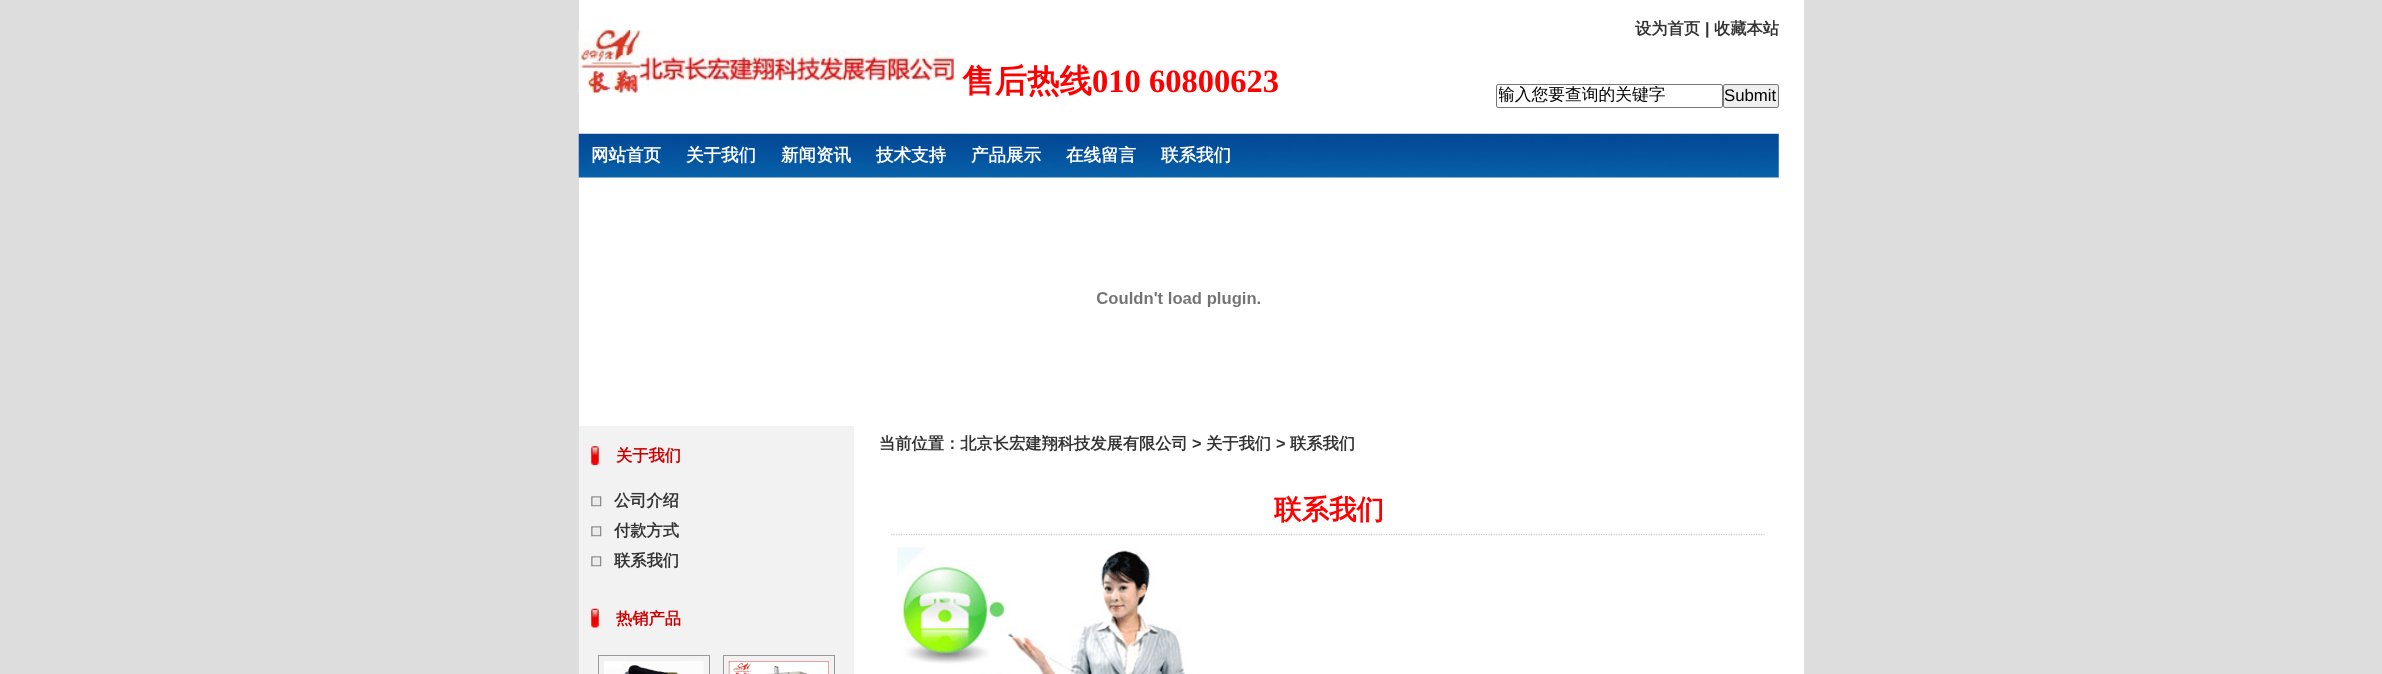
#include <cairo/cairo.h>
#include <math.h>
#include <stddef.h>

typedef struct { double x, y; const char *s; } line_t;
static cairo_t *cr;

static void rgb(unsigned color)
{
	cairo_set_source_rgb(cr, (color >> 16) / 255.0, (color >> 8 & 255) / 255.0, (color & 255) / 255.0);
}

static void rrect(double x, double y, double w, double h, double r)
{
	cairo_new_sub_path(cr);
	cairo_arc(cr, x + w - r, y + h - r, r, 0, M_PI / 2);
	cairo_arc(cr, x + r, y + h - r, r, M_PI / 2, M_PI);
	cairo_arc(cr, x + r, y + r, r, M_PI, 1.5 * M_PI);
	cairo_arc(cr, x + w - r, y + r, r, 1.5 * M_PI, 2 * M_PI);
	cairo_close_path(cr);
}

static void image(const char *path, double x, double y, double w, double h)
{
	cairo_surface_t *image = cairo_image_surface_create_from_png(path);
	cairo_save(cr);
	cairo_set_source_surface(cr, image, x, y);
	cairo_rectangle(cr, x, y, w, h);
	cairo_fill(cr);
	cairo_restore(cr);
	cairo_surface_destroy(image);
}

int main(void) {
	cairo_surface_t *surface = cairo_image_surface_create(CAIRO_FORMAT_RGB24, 2382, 674);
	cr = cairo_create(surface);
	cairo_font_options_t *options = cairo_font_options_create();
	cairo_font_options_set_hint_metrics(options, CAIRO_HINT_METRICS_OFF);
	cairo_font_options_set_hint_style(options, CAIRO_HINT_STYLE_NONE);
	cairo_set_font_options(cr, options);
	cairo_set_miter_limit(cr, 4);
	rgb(0xdddddd);
	cairo_paint(cr);
	rgb(0xffffff);
	cairo_rectangle(cr, 579, 0, 1225, 674);
	cairo_fill(cr);
	image("img/1.png", 578, 30, 376, 63);
	rrect(1496.5, 84.5, 226, 23, 2);
	rgb(0x767676);
	cairo_set_line_width(cr, 1);
	cairo_stroke(cr);
	rgb(0xefefef);
	rrect(1723.5, 84.5, 55, 23, 2);
	cairo_fill_preserve(cr);
	rgb(0x767676);
	cairo_stroke(cr);
	image("img/2.png", 578, 133, 1201, 45);
	image("img/3.png", 1097, 292, 163, 15);
	rgb(0xf2f2f2);
	cairo_rectangle(cr, 579, 426, 275, 248);
	cairo_fill(cr);
	image("img/4.png", 591, 446, 8, 19);
	image("img/5.png", 591, 496, 11, 11);
	image("img/5.png", 591, 526, 11, 11);
	image("img/5.png", 591, 556, 11, 11);
	image("img/6.png", 591, 608, 8, 20);
	cairo_rectangle(cr, 598.5, 655.5, 111, 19);
	rgb(0x999999);
	cairo_stroke(cr);
	image("img/7.png", 604, 661, 100, 13);
	cairo_rectangle(cr, 723.5, 655.5, 111, 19);
	cairo_stroke(cr);
	image("img/8.png", 728, 661, 101, 13);
	cairo_new_path(cr);
	cairo_move_to(cr, 891, 534.5);
	cairo_line_to(cr, 1766, 534.5);
	rgb(0xcccccc);
	cairo_set_line_width(cr, 1.2);
	cairo_set_dash(cr, (double[]){1.25, 1.25}, 2, 0);
	cairo_stroke(cr);
	image("img/9.png", 897, 547, 289, 127);
	cairo_select_font_face(cr, "WenQuanYi Zen Hei", CAIRO_FONT_SLANT_NORMAL, CAIRO_FONT_WEIGHT_BOLD);
	cairo_set_font_size(cr, 32.5);
	rgb(0xff0000);
	cairo_move_to(cr, 962, 92);
	cairo_show_text(cr, "售后热线");
	cairo_select_font_face(cr, "Liberation Serif", CAIRO_FONT_SLANT_NORMAL, CAIRO_FONT_WEIGHT_BOLD);
	cairo_move_to(cr, 1092, 92);
	cairo_show_text(cr, "010 60800623");
	cairo_select_font_face(cr, "WenQuanYi Zen Hei", CAIRO_FONT_SLANT_NORMAL, CAIRO_FONT_WEIGHT_BOLD);
	cairo_set_font_size(cr, 16.25);
	rgb(0x333333);
	cairo_move_to(cr, 1635, 34);
	cairo_show_text(cr, "设为首页");
	cairo_select_font_face(cr, "Liberation Sans", CAIRO_FONT_SLANT_NORMAL, CAIRO_FONT_WEIGHT_BOLD);
	cairo_move_to(cr, 1705, 34);
	cairo_show_text(cr, "|");
	cairo_select_font_face(cr, "WenQuanYi Zen Hei", CAIRO_FONT_SLANT_NORMAL, CAIRO_FONT_WEIGHT_BOLD);
	cairo_move_to(cr, 1714, 34);
	cairo_show_text(cr, "收藏本站");
	cairo_save(cr);
	cairo_rectangle(cr, 1499, 86, 221, 19);
	cairo_clip(cr);
	cairo_select_font_face(cr, "WenQuanYi Zen Hei Medium", CAIRO_FONT_SLANT_NORMAL, CAIRO_FONT_WEIGHT_NORMAL);
	cairo_set_font_size(cr, 16.75);
	rgb(0x000000);
	cairo_move_to(cr, 1498, 100);
	cairo_show_text(cr, "输入您要查询的关键字");
	cairo_restore(cr);
	cairo_select_font_face(cr, "Liberation Sans", CAIRO_FONT_SLANT_NORMAL, CAIRO_FONT_WEIGHT_NORMAL);
	cairo_set_font_size(cr, 16.75);
	rgb(0x000000);
	cairo_move_to(cr, 1724, 101);
	cairo_show_text(cr, "Submit");
	cairo_select_font_face(cr, "WenQuanYi Zen Hei", CAIRO_FONT_SLANT_NORMAL, CAIRO_FONT_WEIGHT_BOLD);
	cairo_set_font_size(cr, 17.5);
	rgb(0xffffff);
	{
		static const line_t items[] = {
			{591, 161, "网站首页"},
			{686, 161, "关于我们"},
			{781, 161, "新闻资讯"},
			{876, 161, "技术支持"},
			{971, 161, "产品展示"},
			{1066, 161, "在线留言"},
			{1161, 161, "联系我们"},
		};
		for (size_t i = 0; i < sizeof items / sizeof *items; i++) {
			cairo_move_to(cr, items[i].x, items[i].y);
			cairo_show_text(cr, items[i].s);
		}
	}
	cairo_set_font_size(cr, 16.25);
	rgb(0xcc0000);
	cairo_move_to(cr, 616, 461);
	cairo_show_text(cr, "关于我们");
	rgb(0x333333);
	{
		static const line_t items[] = {
			{614, 506, "公司介绍"},
			{614, 536, "付款方式"},
			{614, 566, "联系我们"},
		};
		for (size_t i = 0; i < sizeof items / sizeof *items; i++) {
			cairo_move_to(cr, items[i].x, items[i].y);
			cairo_show_text(cr, items[i].s);
		}
	}
	rgb(0xcc0000);
	cairo_move_to(cr, 616, 624);
	cairo_show_text(cr, "热销产品");
	rgb(0x333333);
	cairo_move_to(cr, 879, 449);
	cairo_show_text(cr, "当前位置：北京长宏建翔科技发展有限公司");
	cairo_select_font_face(cr, "Liberation Sans", CAIRO_FONT_SLANT_NORMAL, CAIRO_FONT_WEIGHT_BOLD);
	cairo_move_to(cr, 1192, 449);
	cairo_show_text(cr, ">");
	cairo_select_font_face(cr, "WenQuanYi Zen Hei", CAIRO_FONT_SLANT_NORMAL, CAIRO_FONT_WEIGHT_BOLD);
	cairo_move_to(cr, 1206, 449);
	cairo_show_text(cr, "关于我们");
	cairo_select_font_face(cr, "Liberation Sans", CAIRO_FONT_SLANT_NORMAL, CAIRO_FONT_WEIGHT_BOLD);
	cairo_move_to(cr, 1276, 449);
	cairo_show_text(cr, ">");
	cairo_select_font_face(cr, "WenQuanYi Zen Hei", CAIRO_FONT_SLANT_NORMAL, CAIRO_FONT_WEIGHT_BOLD);
	cairo_move_to(cr, 1290, 449);
	cairo_show_text(cr, "联系我们");
	cairo_set_font_size(cr, 27.5);
	rgb(0xff0000);
	cairo_move_to(cr, 1274, 519);
	cairo_show_text(cr, "联系我们");
	cairo_surface_write_to_png(surface, "page.png");
	cairo_font_options_destroy(options);
	cairo_destroy(cr);
	cairo_surface_destroy(surface);
	return 0;
}
